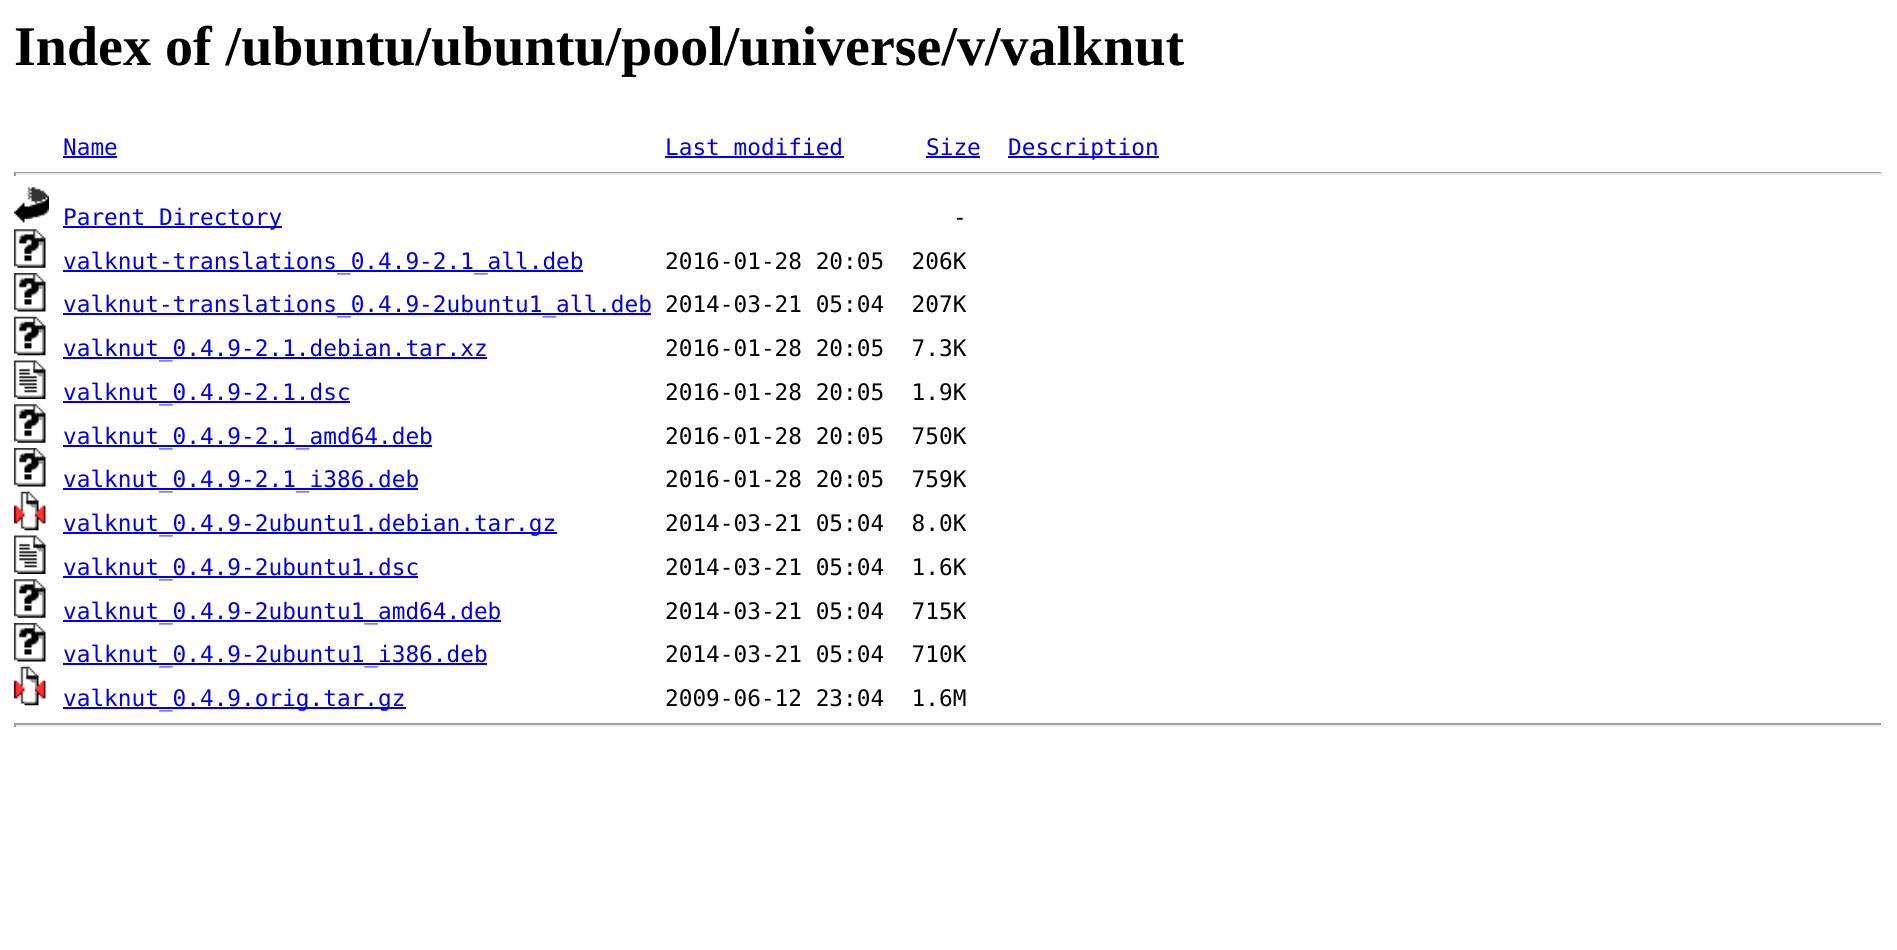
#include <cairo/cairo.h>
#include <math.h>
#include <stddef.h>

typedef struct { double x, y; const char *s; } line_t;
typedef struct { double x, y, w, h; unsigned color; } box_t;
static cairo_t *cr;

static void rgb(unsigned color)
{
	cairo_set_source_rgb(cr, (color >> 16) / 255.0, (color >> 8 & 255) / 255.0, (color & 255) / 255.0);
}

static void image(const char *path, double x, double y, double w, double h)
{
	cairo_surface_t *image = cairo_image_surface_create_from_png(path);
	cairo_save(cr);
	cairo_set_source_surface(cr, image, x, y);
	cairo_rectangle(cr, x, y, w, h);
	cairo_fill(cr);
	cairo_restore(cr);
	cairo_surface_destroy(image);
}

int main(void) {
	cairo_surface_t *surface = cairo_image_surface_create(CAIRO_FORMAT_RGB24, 1897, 950);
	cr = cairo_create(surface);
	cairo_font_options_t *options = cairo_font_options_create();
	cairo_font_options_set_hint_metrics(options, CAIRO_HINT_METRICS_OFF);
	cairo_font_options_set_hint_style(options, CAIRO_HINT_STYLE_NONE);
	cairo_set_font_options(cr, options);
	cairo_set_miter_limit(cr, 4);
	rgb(0xffffff);
	cairo_paint(cr);
	{
		static const box_t items[] = {
			{63, 156, 54, 2, 0x0000ee},
			{665, 156, 179, 2, 0x0000ee},
			{926, 156, 54, 2, 0x0000ee},
			{1008, 156, 151, 2, 0x0000ee},
			{14, 172, 1869, 1, 0x9f9f9f},
			{1881, 172, 2, 4, 0xeeeeee},
			{14, 173, 1869, 2, 0xeeeeee},
			{14, 172, 2, 4, 0x9f9f9f},
		};
		for (size_t i = 0; i < sizeof items / sizeof *items; i++) {
			rgb(items[i].color);
			cairo_rectangle(cr, items[i].x, items[i].y, items[i].w, items[i].h);
			cairo_fill(cr);
		}
	}
	image("img/1.png", 14, 186, 35, 37);
	rgb(0x0000ee);
	cairo_rectangle(cr, 63, 226, 219, 2);
	cairo_fill(cr);
	image("img/2.png", 14, 229, 32, 39);
	cairo_rectangle(cr, 63, 270, 520, 2);
	cairo_fill(cr);
	image("img/3.png", 14, 273, 32, 39);
	cairo_rectangle(cr, 63, 313, 588, 2);
	cairo_fill(cr);
	image("img/4.png", 14, 316, 32, 40);
	cairo_rectangle(cr, 63, 357, 424, 2);
	cairo_fill(cr);
	image("img/5.png", 14, 360, 32, 39);
	cairo_rectangle(cr, 63, 401, 287, 2);
	cairo_fill(cr);
	image("img/2.png", 14, 404, 32, 39);
	cairo_rectangle(cr, 63, 445, 369, 2);
	cairo_fill(cr);
	image("img/3.png", 14, 448, 32, 39);
	cairo_rectangle(cr, 63, 488, 355, 2);
	cairo_fill(cr);
	image("img/6.png", 14, 491, 32, 40);
	cairo_rectangle(cr, 63, 532, 494, 2);
	cairo_fill(cr);
	image("img/5.png", 14, 535, 32, 39);
	cairo_rectangle(cr, 63, 576, 355, 2);
	cairo_fill(cr);
	image("img/2.png", 14, 579, 32, 39);
	cairo_rectangle(cr, 63, 620, 438, 2);
	cairo_fill(cr);
	image("img/3.png", 14, 623, 32, 39);
	cairo_rectangle(cr, 63, 663, 424, 2);
	cairo_fill(cr);
	image("img/6.png", 14, 666, 32, 40);
	{
		static const box_t items[] = {
			{63, 707, 343, 2, 0x0000ee},
			{14, 723, 1869, 2, 0x9f9f9f},
			{1881, 723, 2, 4, 0xeeeeee},
			{14, 725, 1869, 2, 0xeeeeee},
			{14, 723, 2, 4, 0x9f9f9f},
		};
		for (size_t i = 0; i < sizeof items / sizeof *items; i++) {
			rgb(items[i].color);
			cairo_rectangle(cr, items[i].x, items[i].y, items[i].w, items[i].h);
			cairo_fill(cr);
		}
	}
	cairo_select_font_face(cr, "Liberation Serif", CAIRO_FONT_SLANT_NORMAL, CAIRO_FONT_WEIGHT_BOLD);
	cairo_set_font_size(cr, 56);
	rgb(0x000000);
	cairo_move_to(cr, 14, 65);
	cairo_show_text(cr, "Index of /ubuntu/ubuntu/pool/universe/v/valknut");
	cairo_select_font_face(cr, "DejaVu Sans Mono", CAIRO_FONT_SLANT_NORMAL, CAIRO_FONT_WEIGHT_NORMAL);
	cairo_set_font_size(cr, 22.75);
	rgb(0x0000ee);
	{
		static const line_t items[] = {
			{63, 155, "Name"},
			{665, 155, "Last modified"},
			{926, 155, "Size"},
			{1008, 155, "Description"},
			{63, 225, "Parent Directory"},
		};
		for (size_t i = 0; i < sizeof items / sizeof *items; i++) {
			cairo_move_to(cr, items[i].x, items[i].y);
			cairo_show_text(cr, items[i].s);
		}
	}
	rgb(0x000000);
	cairo_move_to(cr, 953, 225);
	cairo_show_text(cr, "-");
	rgb(0x0000ee);
	cairo_move_to(cr, 63, 269);
	cairo_show_text(cr, "valknut-translations_0.4.9-2.1_all.deb");
	rgb(0x000000);
	cairo_move_to(cr, 665, 269);
	cairo_show_text(cr, "2016-01-28 20:05  206K");
	rgb(0x0000ee);
	cairo_move_to(cr, 63, 312);
	cairo_show_text(cr, "valknut-translations_0.4.9-2ubuntu1_all.deb");
	rgb(0x000000);
	cairo_move_to(cr, 665, 312);
	cairo_show_text(cr, "2014-03-21 05:04  207K");
	rgb(0x0000ee);
	cairo_move_to(cr, 63, 356);
	cairo_show_text(cr, "valknut_0.4.9-2.1.debian.tar.xz");
	rgb(0x000000);
	cairo_move_to(cr, 665, 356);
	cairo_show_text(cr, "2016-01-28 20:05  7.3K");
	rgb(0x0000ee);
	cairo_move_to(cr, 63, 400);
	cairo_show_text(cr, "valknut_0.4.9-2.1.dsc");
	rgb(0x000000);
	cairo_move_to(cr, 665, 400);
	cairo_show_text(cr, "2016-01-28 20:05  1.9K");
	rgb(0x0000ee);
	cairo_move_to(cr, 63, 444);
	cairo_show_text(cr, "valknut_0.4.9-2.1_amd64.deb");
	rgb(0x000000);
	cairo_move_to(cr, 665, 444);
	cairo_show_text(cr, "2016-01-28 20:05  750K");
	rgb(0x0000ee);
	cairo_move_to(cr, 63, 487);
	cairo_show_text(cr, "valknut_0.4.9-2.1_i386.deb");
	rgb(0x000000);
	cairo_move_to(cr, 665, 487);
	cairo_show_text(cr, "2016-01-28 20:05  759K");
	rgb(0x0000ee);
	cairo_move_to(cr, 63, 531);
	cairo_show_text(cr, "valknut_0.4.9-2ubuntu1.debian.tar.gz");
	rgb(0x000000);
	cairo_move_to(cr, 665, 531);
	cairo_show_text(cr, "2014-03-21 05:04  8.0K");
	rgb(0x0000ee);
	cairo_move_to(cr, 63, 575);
	cairo_show_text(cr, "valknut_0.4.9-2ubuntu1.dsc");
	rgb(0x000000);
	cairo_move_to(cr, 665, 575);
	cairo_show_text(cr, "2014-03-21 05:04  1.6K");
	rgb(0x0000ee);
	cairo_move_to(cr, 63, 619);
	cairo_show_text(cr, "valknut_0.4.9-2ubuntu1_amd64.deb");
	rgb(0x000000);
	cairo_move_to(cr, 665, 619);
	cairo_show_text(cr, "2014-03-21 05:04  715K");
	rgb(0x0000ee);
	cairo_move_to(cr, 63, 662);
	cairo_show_text(cr, "valknut_0.4.9-2ubuntu1_i386.deb");
	rgb(0x000000);
	cairo_move_to(cr, 665, 662);
	cairo_show_text(cr, "2014-03-21 05:04  710K");
	rgb(0x0000ee);
	cairo_move_to(cr, 63, 706);
	cairo_show_text(cr, "valknut_0.4.9.orig.tar.gz");
	rgb(0x000000);
	cairo_move_to(cr, 665, 706);
	cairo_show_text(cr, "2009-06-12 23:04  1.6M");
	cairo_surface_write_to_png(surface, "page.png");
	cairo_font_options_destroy(options);
	cairo_destroy(cr);
	cairo_surface_destroy(surface);
	return 0;
}
